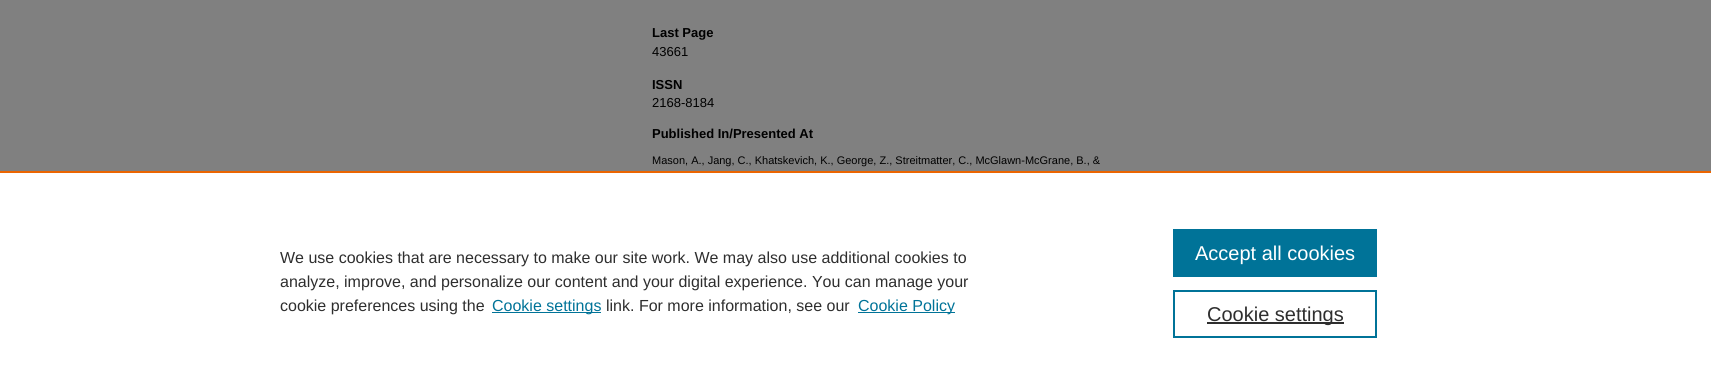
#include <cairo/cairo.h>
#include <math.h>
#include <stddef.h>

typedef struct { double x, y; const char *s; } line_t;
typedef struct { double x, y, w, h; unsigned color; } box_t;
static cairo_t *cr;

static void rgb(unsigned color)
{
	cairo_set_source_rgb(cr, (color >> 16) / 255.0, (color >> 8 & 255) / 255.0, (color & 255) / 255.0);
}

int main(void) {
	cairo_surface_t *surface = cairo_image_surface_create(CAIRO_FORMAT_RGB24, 1711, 391);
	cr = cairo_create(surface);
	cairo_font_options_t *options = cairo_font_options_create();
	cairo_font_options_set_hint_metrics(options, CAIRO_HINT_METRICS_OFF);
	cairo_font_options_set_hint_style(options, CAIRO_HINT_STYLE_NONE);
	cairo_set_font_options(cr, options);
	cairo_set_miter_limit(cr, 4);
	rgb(0x808080);
	cairo_paint(cr);
	{
		static const box_t items[] = {
			{0, 173, 1711, 218, 0xffffff},
			{0, 171, 1711, 2, 0xeb6500},
			{492, 312, 109, 1, 0x007398},
			{858, 312, 97, 1, 0x007398},
			{1173, 229, 204, 48, 0x007398},
		};
		for (size_t i = 0; i < sizeof items / sizeof *items; i++) {
			rgb(items[i].color);
			cairo_rectangle(cr, items[i].x, items[i].y, items[i].w, items[i].h);
			cairo_fill(cr);
		}
	}
	cairo_rectangle(cr, 1174, 291, 202, 46);
	cairo_stroke(cr);
	rgb(0x2e2e2e);
	cairo_rectangle(cr, 1207, 322, 137, 2);
	cairo_fill(cr);
	cairo_select_font_face(cr, "Liberation Sans", CAIRO_FONT_SLANT_NORMAL, CAIRO_FONT_WEIGHT_BOLD);
	cairo_set_font_size(cr, 13);
	rgb(0x000000);
	cairo_move_to(cr, 652, 37);
	cairo_show_text(cr, "Last Page");
	cairo_select_font_face(cr, "Liberation Sans", CAIRO_FONT_SLANT_NORMAL, CAIRO_FONT_WEIGHT_NORMAL);
	cairo_move_to(cr, 652, 56);
	cairo_show_text(cr, "43661");
	cairo_select_font_face(cr, "Liberation Sans", CAIRO_FONT_SLANT_NORMAL, CAIRO_FONT_WEIGHT_BOLD);
	cairo_move_to(cr, 652, 89);
	cairo_show_text(cr, "ISSN");
	cairo_select_font_face(cr, "Liberation Sans", CAIRO_FONT_SLANT_NORMAL, CAIRO_FONT_WEIGHT_NORMAL);
	cairo_move_to(cr, 652, 107);
	cairo_show_text(cr, "2168-8184");
	cairo_select_font_face(cr, "Liberation Sans", CAIRO_FONT_SLANT_NORMAL, CAIRO_FONT_WEIGHT_BOLD);
	cairo_move_to(cr, 652, 138);
	cairo_show_text(cr, "Published In/Presented At");
	cairo_select_font_face(cr, "Liberation Sans", CAIRO_FONT_SLANT_NORMAL, CAIRO_FONT_WEIGHT_NORMAL);
	cairo_set_font_size(cr, 11);
	cairo_move_to(cr, 652, 164);
	cairo_show_text(cr, "Mason, A., Jang, C., Khatskevich, K., George, Z., Streitmatter, C., McGlawn-McGrane, B., &");
	cairo_set_font_size(cr, 16);
	rgb(0x2e2e2e);
	{
		static const line_t items[] = {
			{280, 263, "We use cookies that are necessary to make our site work. We may also use additional cookies to"},
			{280, 287, "analyze, improve, and personalize our content and your digital experience. You can manage your"},
			{280, 311, "cookie preferences using the"},
		};
		for (size_t i = 0; i < sizeof items / sizeof *items; i++) {
			cairo_move_to(cr, items[i].x, items[i].y);
			cairo_show_text(cr, items[i].s);
		}
	}
	rgb(0x007398);
	cairo_move_to(cr, 492, 311);
	cairo_show_text(cr, "Cookie settings");
	rgb(0x2e2e2e);
	cairo_move_to(cr, 606, 311);
	cairo_show_text(cr, "link. For more information, see our");
	rgb(0x007398);
	cairo_move_to(cr, 858, 311);
	cairo_show_text(cr, "Cookie Policy");
	cairo_set_font_size(cr, 20);
	rgb(0xffffff);
	cairo_move_to(cr, 1195, 260);
	cairo_show_text(cr, "Accept all cookies");
	rgb(0x2e2e2e);
	cairo_move_to(cr, 1207, 321);
	cairo_show_text(cr, "Cookie settings");
	cairo_surface_write_to_png(surface, "page.png");
	cairo_font_options_destroy(options);
	cairo_destroy(cr);
	cairo_surface_destroy(surface);
	return 0;
}
